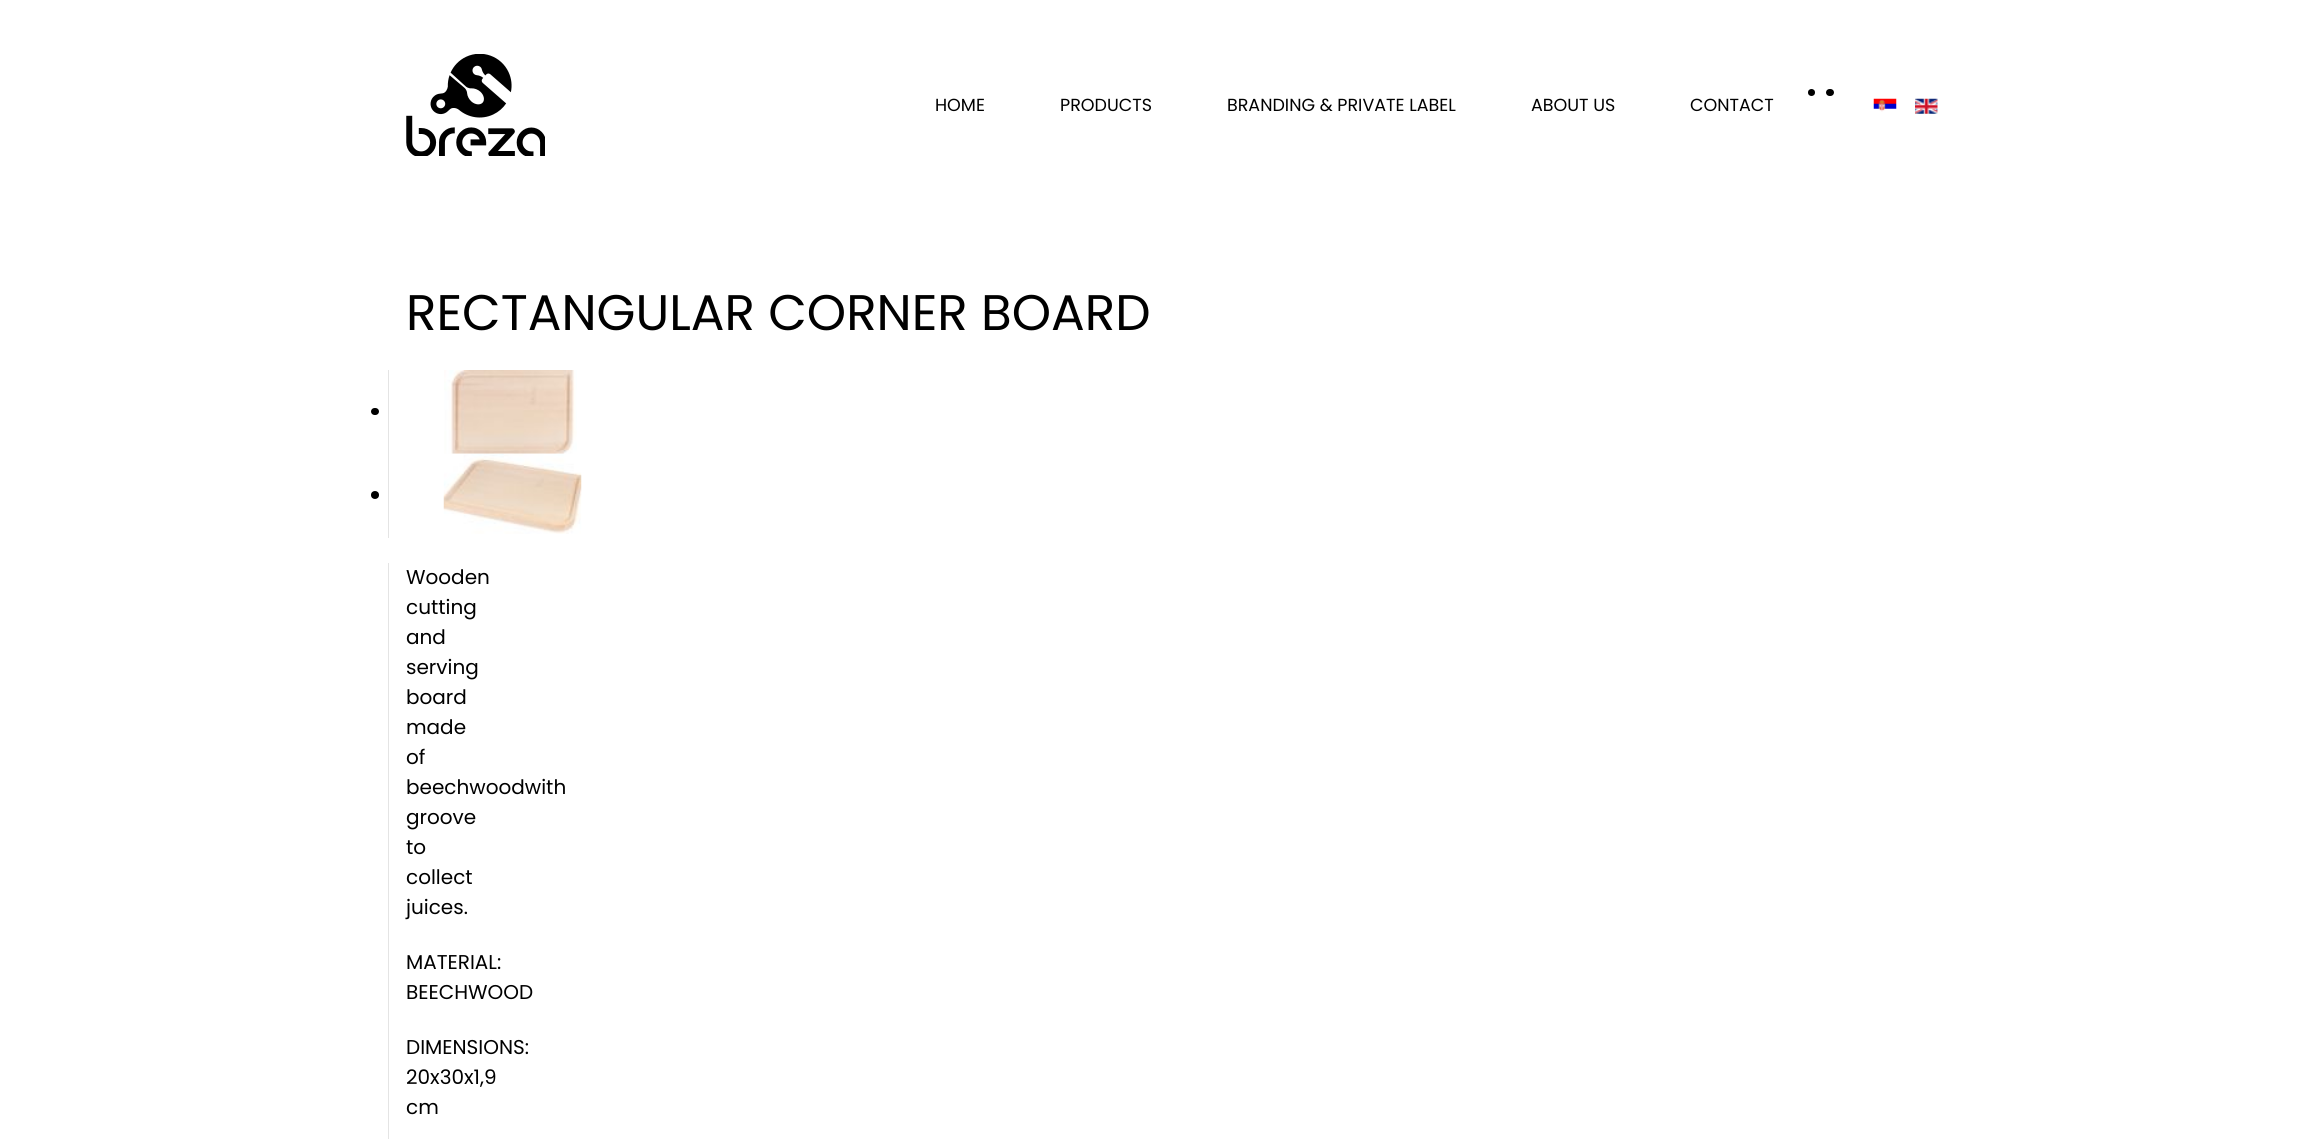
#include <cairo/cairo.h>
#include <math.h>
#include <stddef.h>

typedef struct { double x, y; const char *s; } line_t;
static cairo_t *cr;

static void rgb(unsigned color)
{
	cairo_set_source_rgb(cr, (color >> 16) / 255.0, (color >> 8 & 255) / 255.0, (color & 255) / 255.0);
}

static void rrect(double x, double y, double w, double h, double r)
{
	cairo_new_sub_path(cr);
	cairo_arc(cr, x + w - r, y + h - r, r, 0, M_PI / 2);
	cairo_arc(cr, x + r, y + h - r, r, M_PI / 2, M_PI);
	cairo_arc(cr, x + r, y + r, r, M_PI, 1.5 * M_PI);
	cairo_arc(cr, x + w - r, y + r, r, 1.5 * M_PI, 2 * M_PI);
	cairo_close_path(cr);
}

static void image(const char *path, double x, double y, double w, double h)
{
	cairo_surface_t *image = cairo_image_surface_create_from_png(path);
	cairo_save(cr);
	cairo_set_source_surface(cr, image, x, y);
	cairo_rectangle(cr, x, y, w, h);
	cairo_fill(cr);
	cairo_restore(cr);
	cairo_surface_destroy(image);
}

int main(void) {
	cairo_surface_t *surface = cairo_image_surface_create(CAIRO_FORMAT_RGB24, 2311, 1139);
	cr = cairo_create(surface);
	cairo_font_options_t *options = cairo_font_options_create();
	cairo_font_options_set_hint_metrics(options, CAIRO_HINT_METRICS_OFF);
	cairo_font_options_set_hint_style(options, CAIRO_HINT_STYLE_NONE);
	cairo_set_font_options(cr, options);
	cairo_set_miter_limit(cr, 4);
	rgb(0xffffff);
	cairo_paint(cr);
	image("img/1.png", 406, 54, 139, 102);
	rgb(0x000000);
	cairo_arc(cr, 1811.5, 92.5, 3.5, 0, 2 * M_PI);
	cairo_fill(cr);
	rrect(1826, 89, 8, 7, 3.5);
	cairo_fill(cr);
	image("img/2.png", 1873, 98, 24, 14);
	image("img/3.png", 1915, 98, 23, 16);
	rrect(371, 408, 8, 7, 3.5);
	cairo_fill(cr);
	image("img/4.png", 444, 370, 133, 84);
	cairo_arc(cr, 375, 495, 4, 0, 2 * M_PI);
	cairo_fill(cr);
	image("img/5.png", 443, 453, 139, 81);
	rgb(0xe4e4e4);
	cairo_rectangle(cr, 388, 370, 1, 168);
	cairo_fill(cr);
	cairo_rectangle(cr, 388, 563, 1, 576);
	cairo_fill(cr);
	cairo_select_font_face(cr, "Poppins", CAIRO_FONT_SLANT_NORMAL, CAIRO_FONT_WEIGHT_NORMAL);
	cairo_set_font_size(cr, 17.5);
	rgb(0x000000);
	{
		static const line_t items[] = {
			{935, 111, "HOME"},
			{1060, 111, "PRODUCTS"},
			{1227, 111, "BRANDING & PRIVATE LABEL"},
			{1531, 111, "ABOUT US"},
			{1690, 111, "CONTACT"},
		};
		for (size_t i = 0; i < sizeof items / sizeof *items; i++) {
			cairo_move_to(cr, items[i].x, items[i].y);
			cairo_show_text(cr, items[i].s);
		}
	}
	cairo_set_font_size(cr, 50);
	cairo_move_to(cr, 406, 330);
	cairo_show_text(cr, "RECTANGULAR CORNER BOARD");
	cairo_set_font_size(cr, 20);
	{
		static const line_t items[] = {
			{406, 584, "Wooden"},
			{406, 614, "cutting"},
			{406, 644, "and"},
			{406, 674, "serving"},
			{406, 704, "board"},
			{406, 734, "made"},
			{406, 764, "of"},
			{406, 794, "beechwoodwith"},
			{406, 824, "groove"},
			{406, 854, "to"},
			{406, 884, "collect"},
			{406, 914, "juices."},
			{406, 969, "MATERIAL:"},
			{406, 999, "BEECHWOOD"},
			{406, 1054, "DIMENSIONS:"},
			{406, 1084, "20x30x1,9"},
			{406, 1114, "cm"},
		};
		for (size_t i = 0; i < sizeof items / sizeof *items; i++) {
			cairo_move_to(cr, items[i].x, items[i].y);
			cairo_show_text(cr, items[i].s);
		}
	}
	cairo_surface_write_to_png(surface, "page.png");
	cairo_font_options_destroy(options);
	cairo_destroy(cr);
	cairo_surface_destroy(surface);
	return 0;
}
